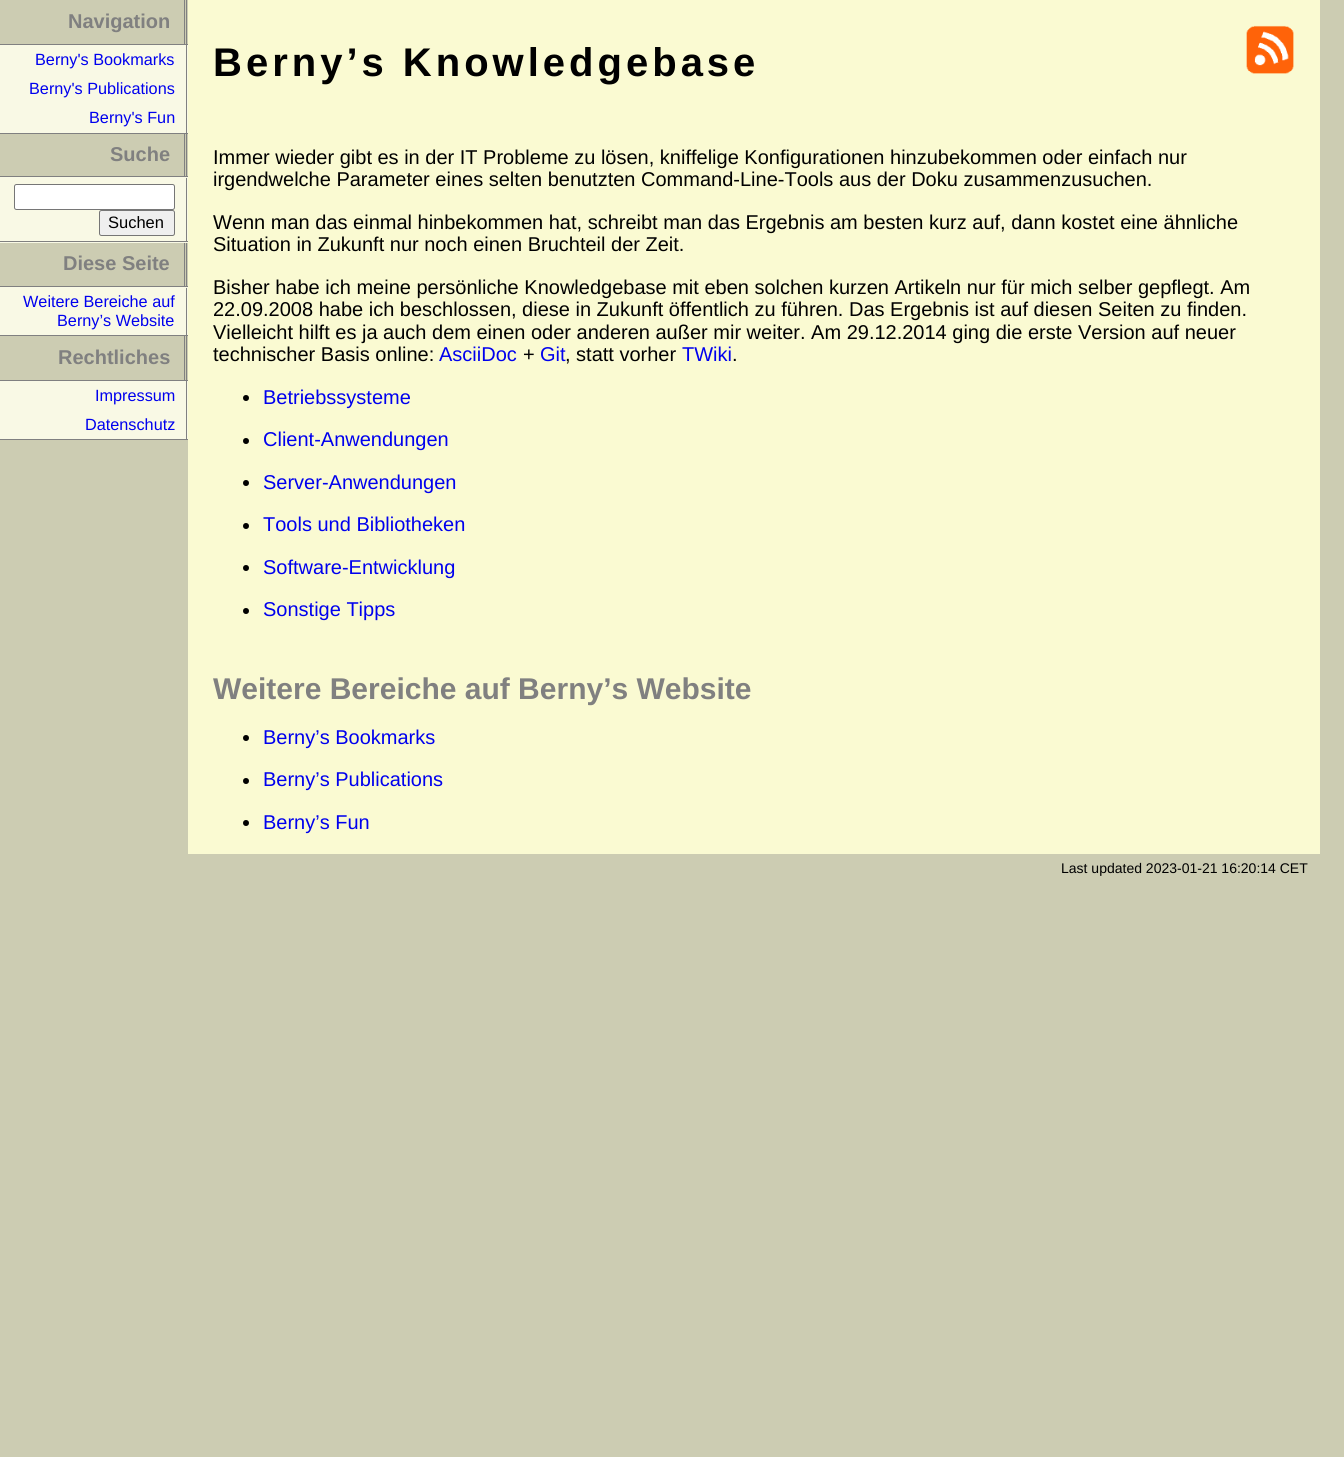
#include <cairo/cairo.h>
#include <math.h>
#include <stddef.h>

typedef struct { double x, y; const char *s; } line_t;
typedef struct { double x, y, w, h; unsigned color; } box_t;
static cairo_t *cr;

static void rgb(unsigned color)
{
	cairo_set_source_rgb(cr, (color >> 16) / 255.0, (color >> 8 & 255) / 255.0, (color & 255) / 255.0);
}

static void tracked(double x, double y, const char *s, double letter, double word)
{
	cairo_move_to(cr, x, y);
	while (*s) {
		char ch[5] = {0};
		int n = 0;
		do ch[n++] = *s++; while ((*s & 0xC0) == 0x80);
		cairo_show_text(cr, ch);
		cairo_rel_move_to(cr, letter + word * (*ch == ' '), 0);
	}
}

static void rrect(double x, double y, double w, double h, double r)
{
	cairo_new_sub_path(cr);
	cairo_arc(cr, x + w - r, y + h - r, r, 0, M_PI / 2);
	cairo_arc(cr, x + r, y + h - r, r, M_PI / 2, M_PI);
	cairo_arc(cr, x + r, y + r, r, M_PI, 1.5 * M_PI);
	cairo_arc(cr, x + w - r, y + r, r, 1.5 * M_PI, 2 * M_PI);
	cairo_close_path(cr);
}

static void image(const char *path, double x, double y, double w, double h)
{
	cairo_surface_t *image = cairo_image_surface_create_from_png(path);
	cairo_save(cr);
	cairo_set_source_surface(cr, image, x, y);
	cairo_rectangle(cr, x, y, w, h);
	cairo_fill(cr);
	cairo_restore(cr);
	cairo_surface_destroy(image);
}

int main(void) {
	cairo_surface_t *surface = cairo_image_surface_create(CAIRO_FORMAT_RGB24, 1344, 1457);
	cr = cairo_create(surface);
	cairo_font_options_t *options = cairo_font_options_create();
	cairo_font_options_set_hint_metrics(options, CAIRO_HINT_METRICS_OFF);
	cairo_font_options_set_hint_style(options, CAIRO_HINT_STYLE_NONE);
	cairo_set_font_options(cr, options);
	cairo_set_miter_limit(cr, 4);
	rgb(0xccccb2);
	cairo_paint(cr);
	{
		static const box_t items[] = {
			{184, 0, 1, 44, 0x808080},
			{186, 0, 1, 44, 0x808080},
			{0, 45, 188, 88, 0xf9f9e5},
			{0, 44, 188, 1, 0x808080},
			{0, 133, 188, 1, 0x808080},
			{186, 45, 1, 88, 0x808080},
			{184, 134, 1, 42, 0x808080},
			{186, 134, 1, 42, 0x808080},
			{0, 177, 188, 66, 0xf9f9e5},
			{0, 176, 188, 1, 0x808080},
			{0, 241, 188, 1, 0x808080},
			{186, 178, 1, 63, 0x808080},
		};
		for (size_t i = 0; i < sizeof items / sizeof *items; i++) {
			rgb(items[i].color);
			cairo_rectangle(cr, items[i].x, items[i].y, items[i].w, items[i].h);
			cairo_fill(cr);
		}
	}
	rgb(0xffffff);
	rrect(14.5, 184.5, 160, 25, 2);
	cairo_fill_preserve(cr);
	rgb(0x767676);
	cairo_set_line_width(cr, 1);
	cairo_stroke(cr);
	rgb(0xefefef);
	rrect(99.5, 210.5, 75, 25, 2);
	cairo_fill_preserve(cr);
	rgb(0x767676);
	cairo_stroke(cr);
	{
		static const box_t items[] = {
			{184, 243, 1, 43, 0x808080},
			{186, 243, 1, 43, 0x808080},
			{0, 287, 188, 48, 0xf9f9e5},
			{0, 286, 188, 1, 0x808080},
			{0, 335, 188, 1, 0x808080},
			{186, 288, 1, 47, 0x808080},
			{184, 336, 1, 44, 0x808080},
			{186, 336, 1, 44, 0x808080},
			{0, 381, 188, 58, 0xf9f9e5},
			{0, 380, 188, 1, 0x808080},
			{0, 439, 188, 1, 0x808080},
			{186, 381, 1, 58, 0x808080},
			{188, 0, 1132, 854, 0xfafad2},
		};
		for (size_t i = 0; i < sizeof items / sizeof *items; i++) {
			rgb(items[i].color);
			cairo_rectangle(cr, items[i].x, items[i].y, items[i].w, items[i].h);
			cairo_fill(cr);
		}
	}
	image("img/1.png", 1246, 25, 48, 49);
	rgb(0x000000);
	cairo_arc(cr, 246, 398, 3, 0, 2 * M_PI);
	cairo_fill(cr);
	cairo_arc(cr, 246, 441, 3, 0, 2 * M_PI);
	cairo_fill(cr);
	cairo_arc(cr, 246, 483, 3, 0, 2 * M_PI);
	cairo_fill(cr);
	cairo_arc(cr, 246, 526, 3, 0, 2 * M_PI);
	cairo_fill(cr);
	cairo_arc(cr, 246, 568, 3, 0, 2 * M_PI);
	cairo_fill(cr);
	cairo_arc(cr, 246, 611, 3, 0, 2 * M_PI);
	cairo_fill(cr);
	cairo_arc(cr, 246, 738, 3, 0, 2 * M_PI);
	cairo_fill(cr);
	cairo_arc(cr, 246, 781, 3, 0, 2 * M_PI);
	cairo_fill(cr);
	cairo_arc(cr, 246, 823, 3, 0, 2 * M_PI);
	cairo_fill(cr);
	cairo_select_font_face(cr, "Liberation Sans", CAIRO_FONT_SLANT_NORMAL, CAIRO_FONT_WEIGHT_BOLD);
	cairo_set_font_size(cr, 20);
	rgb(0x808080);
	cairo_move_to(cr, 68, 28);
	cairo_show_text(cr, "Navigation");
	cairo_select_font_face(cr, "Liberation Sans", CAIRO_FONT_SLANT_NORMAL, CAIRO_FONT_WEIGHT_NORMAL);
	cairo_set_font_size(cr, 16.25);
	rgb(0x0000ee);
	{
		static const line_t items[] = {
			{35, 65, "Berny's Bookmarks"},
			{29, 94, "Berny's Publications"},
			{89, 123, "Berny's Fun"},
		};
		for (size_t i = 0; i < sizeof items / sizeof *items; i++) {
			cairo_move_to(cr, items[i].x, items[i].y);
			cairo_show_text(cr, items[i].s);
		}
	}
	cairo_select_font_face(cr, "Liberation Sans", CAIRO_FONT_SLANT_NORMAL, CAIRO_FONT_WEIGHT_BOLD);
	cairo_set_font_size(cr, 20);
	rgb(0x808080);
	cairo_move_to(cr, 110, 161);
	cairo_show_text(cr, "Suche");
	cairo_select_font_face(cr, "Liberation Sans", CAIRO_FONT_SLANT_NORMAL, CAIRO_FONT_WEIGHT_NORMAL);
	cairo_set_font_size(cr, 16.5);
	rgb(0x000000);
	cairo_move_to(cr, 108, 228);
	cairo_show_text(cr, "Suchen");
	cairo_select_font_face(cr, "Liberation Sans", CAIRO_FONT_SLANT_NORMAL, CAIRO_FONT_WEIGHT_BOLD);
	cairo_set_font_size(cr, 20);
	rgb(0x808080);
	cairo_move_to(cr, 63, 270);
	cairo_show_text(cr, "Diese Seite");
	cairo_select_font_face(cr, "Liberation Sans", CAIRO_FONT_SLANT_NORMAL, CAIRO_FONT_WEIGHT_NORMAL);
	cairo_set_font_size(cr, 16.25);
	rgb(0x0000ee);
	cairo_move_to(cr, 23, 307);
	cairo_show_text(cr, "Weitere Bereiche auf");
	cairo_move_to(cr, 57, 326);
	cairo_show_text(cr, "Berny’s Website");
	cairo_select_font_face(cr, "Liberation Sans", CAIRO_FONT_SLANT_NORMAL, CAIRO_FONT_WEIGHT_BOLD);
	cairo_set_font_size(cr, 20);
	rgb(0x808080);
	cairo_move_to(cr, 58, 364);
	cairo_show_text(cr, "Rechtliches");
	cairo_select_font_face(cr, "Liberation Sans", CAIRO_FONT_SLANT_NORMAL, CAIRO_FONT_WEIGHT_NORMAL);
	cairo_set_font_size(cr, 16.25);
	rgb(0x0000ee);
	cairo_move_to(cr, 95, 401);
	cairo_show_text(cr, "Impressum");
	cairo_move_to(cr, 85, 430);
	cairo_show_text(cr, "Datenschutz");
	cairo_select_font_face(cr, "Liberation Sans", CAIRO_FONT_SLANT_NORMAL, CAIRO_FONT_WEIGHT_BOLD);
	cairo_set_font_size(cr, 40);
	rgb(0x000000);
	tracked(213, 76, "Berny’s Knowledgebase", 4, 0);
	cairo_select_font_face(cr, "Liberation Sans", CAIRO_FONT_SLANT_NORMAL, CAIRO_FONT_WEIGHT_NORMAL);
	cairo_set_font_size(cr, 20);
	{
		static const line_t items[] = {
			{213, 164, "Immer wieder gibt es in der IT Probleme zu lösen, kniffelige Konfigurationen hinzubekommen oder einfach nur"},
			{213, 186, "irgendwelche Parameter eines selten benutzten Command-Line-Tools aus der Doku zusammenzusuchen."},
			{213, 229, "Wenn man das einmal hinbekommen hat, schreibt man das Ergebnis am besten kurz auf, dann kostet eine ähnliche"},
			{213, 251, "Situation in Zukunft nur noch einen Bruchteil der Zeit."},
			{213, 294, "Bisher habe ich meine persönliche Knowledgebase mit eben solchen kurzen Artikeln nur für mich selber gepflegt. Am"},
			{213, 316, "22.09.2008 habe ich beschlossen, diese in Zukunft öffentlich zu führen. Das Ergebnis ist auf diesen Seiten zu finden."},
			{213, 339, "Vielleicht hilft es ja auch dem einen oder anderen außer mir weiter. Am 29.12.2014 ging die erste Version auf neuer"},
			{213, 361, "technischer Basis online:"},
		};
		for (size_t i = 0; i < sizeof items / sizeof *items; i++) {
			cairo_move_to(cr, items[i].x, items[i].y);
			cairo_show_text(cr, items[i].s);
		}
	}
	rgb(0x0000ee);
	cairo_move_to(cr, 439, 361);
	cairo_show_text(cr, "AsciiDoc");
	rgb(0x000000);
	cairo_move_to(cr, 523, 361);
	cairo_show_text(cr, "+");
	rgb(0x0000ee);
	cairo_move_to(cr, 540, 361);
	cairo_show_text(cr, "Git");
	rgb(0x000000);
	cairo_move_to(cr, 565, 361);
	cairo_show_text(cr, ", statt vorher");
	rgb(0x0000ee);
	cairo_move_to(cr, 682, 361);
	cairo_show_text(cr, "TWiki");
	rgb(0x000000);
	cairo_move_to(cr, 732, 361);
	cairo_show_text(cr, ".");
	rgb(0x0000ee);
	{
		static const line_t items[] = {
			{263, 404, "Betriebssysteme"},
			{263, 446, "Client-Anwendungen"},
			{263, 489, "Server-Anwendungen"},
			{263, 531, "Tools und Bibliotheken"},
			{263, 574, "Software-Entwicklung"},
			{263, 616, "Sonstige Tipps"},
		};
		for (size_t i = 0; i < sizeof items / sizeof *items; i++) {
			cairo_move_to(cr, items[i].x, items[i].y);
			cairo_show_text(cr, items[i].s);
		}
	}
	cairo_select_font_face(cr, "Liberation Sans", CAIRO_FONT_SLANT_NORMAL, CAIRO_FONT_WEIGHT_BOLD);
	cairo_set_font_size(cr, 30);
	rgb(0x808080);
	cairo_move_to(cr, 213, 699);
	cairo_show_text(cr, "Weitere Bereiche auf Berny’s Website");
	cairo_select_font_face(cr, "Liberation Sans", CAIRO_FONT_SLANT_NORMAL, CAIRO_FONT_WEIGHT_NORMAL);
	cairo_set_font_size(cr, 20);
	rgb(0x0000ee);
	{
		static const line_t items[] = {
			{263, 744, "Berny’s Bookmarks"},
			{263, 786, "Berny’s Publications"},
			{263, 829, "Berny’s Fun"},
		};
		for (size_t i = 0; i < sizeof items / sizeof *items; i++) {
			cairo_move_to(cr, items[i].x, items[i].y);
			cairo_show_text(cr, items[i].s);
		}
	}
	cairo_set_font_size(cr, 14);
	rgb(0x000000);
	cairo_move_to(cr, 1061, 873);
	cairo_show_text(cr, "Last updated 2023-01-21 16:20:14 CET");
	cairo_surface_write_to_png(surface, "page.png");
	cairo_font_options_destroy(options);
	cairo_destroy(cr);
	cairo_surface_destroy(surface);
	return 0;
}
